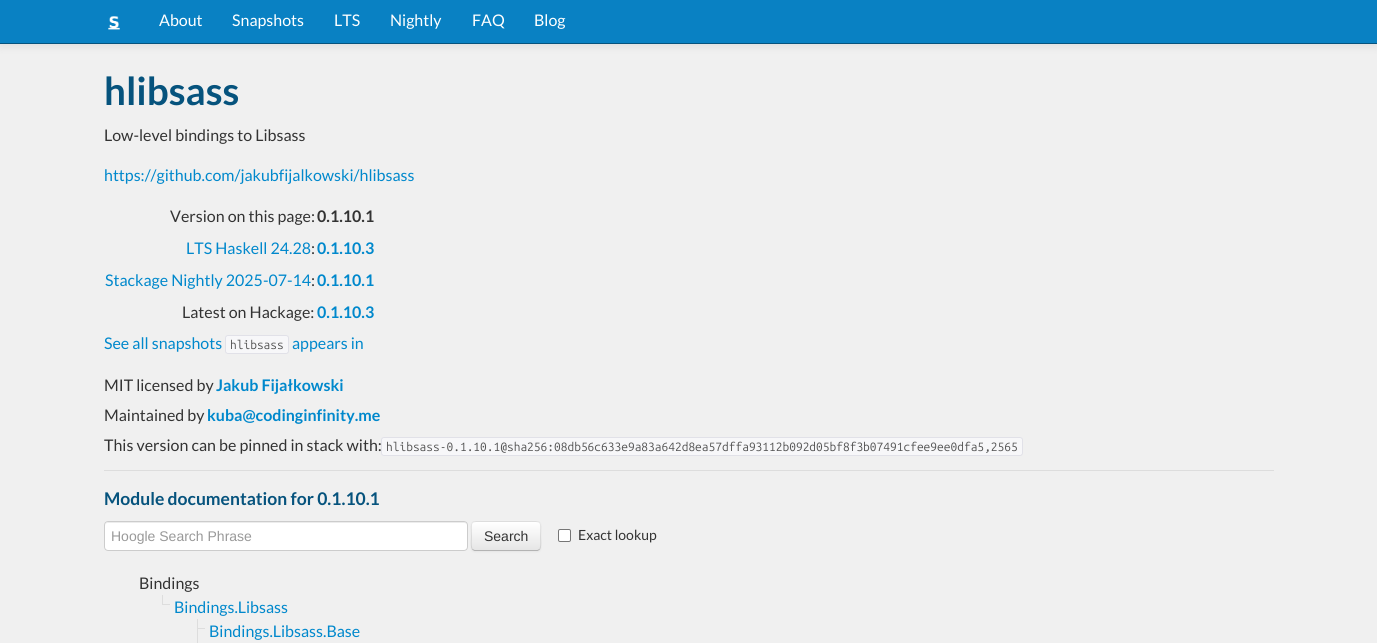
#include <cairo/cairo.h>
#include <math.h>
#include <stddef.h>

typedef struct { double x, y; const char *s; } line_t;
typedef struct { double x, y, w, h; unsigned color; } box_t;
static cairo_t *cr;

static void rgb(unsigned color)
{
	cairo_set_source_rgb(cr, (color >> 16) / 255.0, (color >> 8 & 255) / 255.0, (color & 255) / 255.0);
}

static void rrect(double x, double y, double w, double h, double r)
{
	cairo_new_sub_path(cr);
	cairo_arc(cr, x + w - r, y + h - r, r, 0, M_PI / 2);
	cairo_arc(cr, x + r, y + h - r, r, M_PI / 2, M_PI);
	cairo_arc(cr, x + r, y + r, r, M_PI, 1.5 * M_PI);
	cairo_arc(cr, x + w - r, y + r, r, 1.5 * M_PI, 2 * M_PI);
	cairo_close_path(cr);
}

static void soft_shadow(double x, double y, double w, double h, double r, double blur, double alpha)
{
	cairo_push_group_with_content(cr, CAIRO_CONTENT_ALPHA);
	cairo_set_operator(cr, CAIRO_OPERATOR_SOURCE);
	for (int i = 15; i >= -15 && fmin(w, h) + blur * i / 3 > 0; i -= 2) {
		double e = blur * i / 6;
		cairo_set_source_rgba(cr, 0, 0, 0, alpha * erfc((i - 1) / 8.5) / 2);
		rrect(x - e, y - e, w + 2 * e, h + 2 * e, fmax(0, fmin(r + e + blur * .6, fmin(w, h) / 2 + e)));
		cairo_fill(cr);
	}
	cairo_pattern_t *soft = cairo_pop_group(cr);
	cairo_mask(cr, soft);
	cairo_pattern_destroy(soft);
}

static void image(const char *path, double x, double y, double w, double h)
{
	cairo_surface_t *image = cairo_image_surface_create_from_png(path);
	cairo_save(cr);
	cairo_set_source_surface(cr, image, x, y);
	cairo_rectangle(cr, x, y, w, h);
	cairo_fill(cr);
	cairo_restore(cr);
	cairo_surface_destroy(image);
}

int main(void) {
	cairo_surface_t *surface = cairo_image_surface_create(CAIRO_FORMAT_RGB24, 1377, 643);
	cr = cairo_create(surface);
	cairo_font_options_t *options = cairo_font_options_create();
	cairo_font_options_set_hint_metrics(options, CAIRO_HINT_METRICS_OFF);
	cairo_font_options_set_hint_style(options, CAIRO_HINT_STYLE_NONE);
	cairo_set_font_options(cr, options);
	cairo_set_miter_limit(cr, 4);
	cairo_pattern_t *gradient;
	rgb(0xf0f0f0);
	cairo_paint(cr);
	rgb(0x000000);
	soft_shadow(0, 1, 1377, 44, 0, 5, 0.1);
	rgb(0x0981c3);
	cairo_rectangle(cr, 0, 0, 1377, 43);
	cairo_fill(cr);
	rgb(0x06537d);
	cairo_rectangle(cr, 0, 43, 1377, 1);
	cairo_fill(cr);
	image("img/1.png", 108, 16, 12, 14);
	rgb(0xf7f7f9);
	rrect(225.5, 335.5, 63, 18, 2.5);
	cairo_fill_preserve(cr);
	rgb(0xe1e1e8);
	cairo_set_line_width(cr, 1);
	cairo_stroke(cr);
	rgb(0xf7f7f9);
	rrect(381.5, 437.5, 641, 18, 2.5);
	cairo_fill_preserve(cr);
	rgb(0xe1e1e8);
	cairo_stroke(cr);
	rgb(0xdddddd);
	cairo_rectangle(cr, 104, 470, 1170, 1);
	cairo_fill(cr);
	rgb(0xffffff);
	rrect(104, 521, 364, 30, 4);
	cairo_fill(cr);
	rgb(0xececec);
	cairo_new_path(cr);
	cairo_move_to(cr, 108, 523);
	cairo_line_to(cr, 464, 523);
	cairo_curve_to(cr, 466, 523, 467, 524, 467, 526);
	cairo_curve_to(cr, 467, 524, 466, 522, 464, 522);
	cairo_line_to(cr, 108, 522);
	cairo_line_to(cr, 106, 523);
	cairo_line_to(cr, 105, 526);
	cairo_curve_to(cr, 105, 524, 106, 523, 108, 523);
	cairo_close_path(cr);
	cairo_fill(cr);
	rrect(104.5, 521.5, 363, 29, 3.5);
	rgb(0xcccccc);
	cairo_stroke(cr);
	rgb(0x000000);
	soft_shadow(471, 522, 70, 30, 4, 1, 0.05);
	rgb(0xf5f5f5);
	rrect(471, 521, 70, 30, 4);
	cairo_fill(cr);
	cairo_save(cr);
	rrect(471, 521, 70, 30, 4);
	cairo_clip(cr);
	gradient = cairo_pattern_create_linear(506, 522, 506, 550);
	cairo_pattern_add_color_stop_rgba(gradient, 0, 1, 1, 1, 1);
	cairo_pattern_add_color_stop_rgba(gradient, 1, 0.902, 0.902, 0.902, 1);
	cairo_set_source(cr, gradient);
	cairo_pattern_destroy(gradient);
	cairo_rectangle(cr, 471, 522, 70, 28);
	cairo_fill(cr);
	cairo_restore(cr);
	cairo_new_path(cr);
	cairo_move_to(cr, 539.5, 549.5);
	cairo_line_to(cr, 537.5, 550.5);
	cairo_line_to(cr, 474.5, 550.5);
	cairo_line_to(cr, 472.5, 549.5);
	rgb(0xb3b3b3);
	cairo_stroke(cr);
	cairo_new_path(cr);
	cairo_move_to(cr, 472.5, 549.5);
	cairo_curve_to(cr, 470.5, 547.5, 471.5, 539, 471.5, 536);
	cairo_curve_to(cr, 471.5, 520, 469, 521.5, 485.5, 521.5);
	cairo_line_to(cr, 526.5, 521.5);
	cairo_curve_to(cr, 543, 521.5, 540.5, 520, 540.5, 536);
	cairo_curve_to(cr, 540.5, 539, 541.5, 547.5, 539.5, 549.5);
	cairo_set_source_rgba(cr, 0, 0, 0, 0.1);
	cairo_stroke(cr);
	rgb(0xffffff);
	rrect(558.5, 529.5, 12, 12, 1.5);
	cairo_fill_preserve(cr);
	rgb(0x767676);
	cairo_stroke(cr);
	{
		static const box_t items[] = {
			{162, 595, 1, 9, 0xdddddd},
			{162, 604, 8, 1, 0xdddddd},
			{197, 628, 8, 1, 0xdddddd},
			{197, 619, 1, 24, 0xdddddd},
		};
		for (size_t i = 0; i < sizeof items / sizeof *items; i++) {
			rgb(items[i].color);
			cairo_rectangle(cr, items[i].x, items[i].y, items[i].w, items[i].h);
			cairo_fill(cr);
		}
	}
	cairo_select_font_face(cr, "Lato", CAIRO_FONT_SLANT_NORMAL, CAIRO_FONT_WEIGHT_NORMAL);
	cairo_set_font_size(cr, 16);
	rgb(0xffffff);
	{
		static const line_t items[] = {
			{159, 26, "About"},
			{232, 26, "Snapshots"},
			{334, 26, "LTS"},
			{390, 26, "Nightly"},
			{472, 26, "FAQ"},
			{534, 26, "Blog"},
		};
		for (size_t i = 0; i < sizeof items / sizeof *items; i++) {
			cairo_move_to(cr, items[i].x, items[i].y);
			cairo_show_text(cr, items[i].s);
		}
	}
	cairo_select_font_face(cr, "Lato", CAIRO_FONT_SLANT_NORMAL, CAIRO_FONT_WEIGHT_BOLD);
	cairo_set_font_size(cr, 38.5);
	rgb(0x06537d);
	cairo_move_to(cr, 104, 105);
	cairo_show_text(cr, "hlibsass");
	cairo_select_font_face(cr, "Lato", CAIRO_FONT_SLANT_NORMAL, CAIRO_FONT_WEIGHT_NORMAL);
	cairo_set_font_size(cr, 16);
	rgb(0x333333);
	cairo_move_to(cr, 104, 141);
	cairo_show_text(cr, "Low-level bindings to Libsass");
	rgb(0x0088cc);
	cairo_move_to(cr, 104, 181);
	cairo_show_text(cr, "https://github.com/jakubfijalkowski/hlibsass");
	rgb(0x333333);
	cairo_move_to(cr, 170, 222);
	cairo_show_text(cr, "Version on this page:");
	cairo_select_font_face(cr, "Lato", CAIRO_FONT_SLANT_NORMAL, CAIRO_FONT_WEIGHT_BOLD);
	cairo_move_to(cr, 317, 222);
	cairo_show_text(cr, "0.1.10.1");
	cairo_select_font_face(cr, "Lato", CAIRO_FONT_SLANT_NORMAL, CAIRO_FONT_WEIGHT_NORMAL);
	rgb(0x0088cc);
	cairo_move_to(cr, 186, 254);
	cairo_show_text(cr, "LTS Haskell 24.28");
	rgb(0x333333);
	cairo_move_to(cr, 311, 254);
	cairo_show_text(cr, ":");
	cairo_select_font_face(cr, "Lato", CAIRO_FONT_SLANT_NORMAL, CAIRO_FONT_WEIGHT_BOLD);
	rgb(0x0088cc);
	cairo_move_to(cr, 317, 254);
	cairo_show_text(cr, "0.1.10.3");
	cairo_select_font_face(cr, "Lato", CAIRO_FONT_SLANT_NORMAL, CAIRO_FONT_WEIGHT_NORMAL);
	cairo_move_to(cr, 105, 286);
	cairo_show_text(cr, "Stackage Nightly 2025-07-14");
	rgb(0x333333);
	cairo_move_to(cr, 311, 286);
	cairo_show_text(cr, ":");
	cairo_select_font_face(cr, "Lato", CAIRO_FONT_SLANT_NORMAL, CAIRO_FONT_WEIGHT_BOLD);
	rgb(0x0088cc);
	cairo_move_to(cr, 317, 286);
	cairo_show_text(cr, "0.1.10.1");
	cairo_select_font_face(cr, "Lato", CAIRO_FONT_SLANT_NORMAL, CAIRO_FONT_WEIGHT_NORMAL);
	rgb(0x333333);
	cairo_move_to(cr, 182, 318);
	cairo_show_text(cr, "Latest on Hackage:");
	cairo_select_font_face(cr, "Lato", CAIRO_FONT_SLANT_NORMAL, CAIRO_FONT_WEIGHT_BOLD);
	rgb(0x0088cc);
	cairo_move_to(cr, 317, 318);
	cairo_show_text(cr, "0.1.10.3");
	cairo_select_font_face(cr, "Lato", CAIRO_FONT_SLANT_NORMAL, CAIRO_FONT_WEIGHT_NORMAL);
	cairo_move_to(cr, 104, 349);
	cairo_show_text(cr, "See all snapshots");
	cairo_select_font_face(cr, "Ubuntu Mono", CAIRO_FONT_SLANT_NORMAL, CAIRO_FONT_WEIGHT_NORMAL);
	cairo_set_font_size(cr, 12);
	rgb(0x555555);
	cairo_move_to(cr, 230, 349);
	cairo_show_text(cr, "hlibsass");
	cairo_select_font_face(cr, "Lato", CAIRO_FONT_SLANT_NORMAL, CAIRO_FONT_WEIGHT_NORMAL);
	cairo_set_font_size(cr, 16);
	rgb(0x0088cc);
	cairo_move_to(cr, 292, 349);
	cairo_show_text(cr, "appears in");
	rgb(0x333333);
	cairo_move_to(cr, 104, 391);
	cairo_show_text(cr, "MIT licensed by");
	cairo_select_font_face(cr, "Lato", CAIRO_FONT_SLANT_NORMAL, CAIRO_FONT_WEIGHT_BOLD);
	rgb(0x0088cc);
	cairo_move_to(cr, 216, 391);
	cairo_show_text(cr, "Jakub Fijałkowski");
	cairo_select_font_face(cr, "Lato", CAIRO_FONT_SLANT_NORMAL, CAIRO_FONT_WEIGHT_NORMAL);
	rgb(0x333333);
	cairo_move_to(cr, 104, 421);
	cairo_show_text(cr, "Maintained by");
	cairo_select_font_face(cr, "Lato", CAIRO_FONT_SLANT_NORMAL, CAIRO_FONT_WEIGHT_BOLD);
	rgb(0x0088cc);
	cairo_move_to(cr, 207, 421);
	cairo_show_text(cr, "kuba@codinginfinity.me");
	cairo_select_font_face(cr, "Lato", CAIRO_FONT_SLANT_NORMAL, CAIRO_FONT_WEIGHT_NORMAL);
	rgb(0x333333);
	cairo_move_to(cr, 104, 451);
	cairo_show_text(cr, "This version can be pinned in stack with:");
	cairo_select_font_face(cr, "Ubuntu Mono", CAIRO_FONT_SLANT_NORMAL, CAIRO_FONT_WEIGHT_NORMAL);
	cairo_set_font_size(cr, 12);
	rgb(0x555555);
	cairo_move_to(cr, 386, 451);
	cairo_show_text(cr, "hlibsass-0.1.10.1@sha256:08db56c633e9a83a642d8ea57dffa93112b092d05bf8f3b07491cfee9ee0dfa5,2565");
	cairo_select_font_face(cr, "Lato", CAIRO_FONT_SLANT_NORMAL, CAIRO_FONT_WEIGHT_BOLD);
	cairo_set_font_size(cr, 17.5);
	rgb(0x06537d);
	cairo_move_to(cr, 104, 505);
	cairo_show_text(cr, "Module documentation for 0.1.10.1");
	cairo_select_font_face(cr, "Liberation Sans", CAIRO_FONT_SLANT_NORMAL, CAIRO_FONT_WEIGHT_NORMAL);
	cairo_set_font_size(cr, 14);
	rgb(0x999999);
	cairo_move_to(cr, 111, 541);
	cairo_show_text(cr, "Hoogle Search Phrase");
	rgb(0x333333);
	cairo_move_to(cr, 484, 541);
	cairo_show_text(cr, "Search");
	cairo_select_font_face(cr, "Lato", CAIRO_FONT_SLANT_NORMAL, CAIRO_FONT_WEIGHT_NORMAL);
	cairo_move_to(cr, 578, 540);
	cairo_show_text(cr, "Exact lookup");
	cairo_set_font_size(cr, 16);
	cairo_move_to(cr, 139, 589);
	cairo_show_text(cr, "Bindings");
	rgb(0x0088cc);
	cairo_move_to(cr, 174, 613);
	cairo_show_text(cr, "Bindings.Libsass");
	cairo_move_to(cr, 209, 637);
	cairo_show_text(cr, "Bindings.Libsass.Base");
	cairo_surface_write_to_png(surface, "page.png");
	cairo_font_options_destroy(options);
	cairo_destroy(cr);
	cairo_surface_destroy(surface);
	return 0;
}
